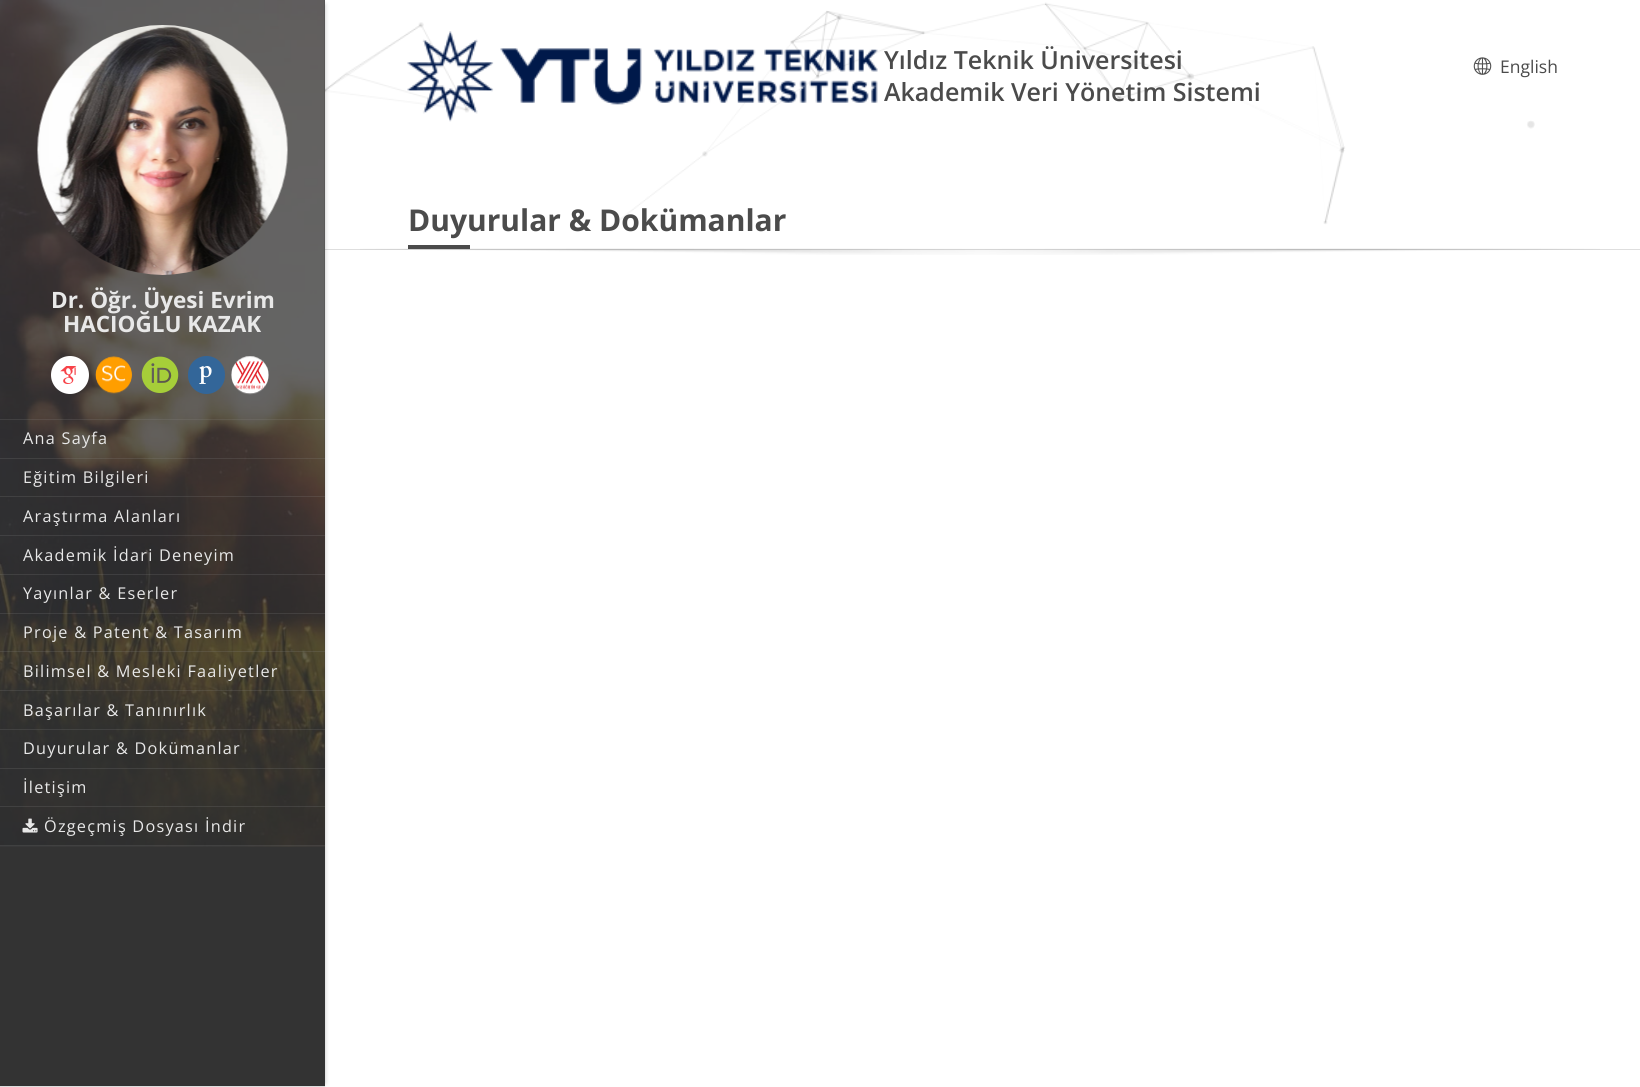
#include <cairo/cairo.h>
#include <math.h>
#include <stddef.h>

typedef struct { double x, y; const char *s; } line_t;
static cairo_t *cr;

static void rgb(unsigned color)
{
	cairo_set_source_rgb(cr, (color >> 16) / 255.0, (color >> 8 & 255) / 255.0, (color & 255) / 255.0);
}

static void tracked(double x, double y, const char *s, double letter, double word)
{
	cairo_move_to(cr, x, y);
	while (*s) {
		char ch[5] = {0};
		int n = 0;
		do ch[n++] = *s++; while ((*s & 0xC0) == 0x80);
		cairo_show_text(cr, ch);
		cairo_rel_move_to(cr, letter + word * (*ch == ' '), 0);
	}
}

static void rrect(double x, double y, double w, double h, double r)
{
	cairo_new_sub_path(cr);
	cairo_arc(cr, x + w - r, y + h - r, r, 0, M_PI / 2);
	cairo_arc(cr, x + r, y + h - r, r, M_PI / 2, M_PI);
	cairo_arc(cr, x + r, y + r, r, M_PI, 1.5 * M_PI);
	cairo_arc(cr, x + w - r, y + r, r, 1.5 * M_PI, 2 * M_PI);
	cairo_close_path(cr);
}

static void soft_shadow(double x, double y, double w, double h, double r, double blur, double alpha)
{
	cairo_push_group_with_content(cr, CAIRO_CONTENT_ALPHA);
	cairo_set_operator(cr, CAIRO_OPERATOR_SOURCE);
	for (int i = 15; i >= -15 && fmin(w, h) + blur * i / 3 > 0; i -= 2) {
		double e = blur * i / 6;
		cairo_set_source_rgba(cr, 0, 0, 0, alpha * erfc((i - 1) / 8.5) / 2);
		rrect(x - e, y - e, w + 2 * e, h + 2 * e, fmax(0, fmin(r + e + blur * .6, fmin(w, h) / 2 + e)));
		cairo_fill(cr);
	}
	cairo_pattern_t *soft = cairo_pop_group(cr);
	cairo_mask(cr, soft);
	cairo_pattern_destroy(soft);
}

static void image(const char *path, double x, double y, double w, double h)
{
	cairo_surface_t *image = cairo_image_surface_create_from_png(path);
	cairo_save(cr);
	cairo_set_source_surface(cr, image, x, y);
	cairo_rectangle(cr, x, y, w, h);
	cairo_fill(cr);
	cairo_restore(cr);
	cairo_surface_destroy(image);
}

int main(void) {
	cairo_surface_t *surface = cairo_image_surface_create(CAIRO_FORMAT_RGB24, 1640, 1087);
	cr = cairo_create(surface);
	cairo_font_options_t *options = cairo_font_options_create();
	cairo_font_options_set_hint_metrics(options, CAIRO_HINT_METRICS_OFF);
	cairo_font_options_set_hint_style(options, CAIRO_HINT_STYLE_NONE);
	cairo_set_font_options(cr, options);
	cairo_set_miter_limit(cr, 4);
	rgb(0xffffff);
	cairo_paint(cr);
	rgb(0xdedede);
	cairo_rectangle(cr, 325, 249, 1315, 1);
	cairo_fill(cr);
	image("img/1.png", 325, 2, 1210, 227);
	image("img/2.png", 407, 31, 471, 91);
	image("img/3.png", 1473, 57, 19, 18);
	image("img/4.png", 360, 248, 1240, 7);
	rgb(0x4b4b4b);
	cairo_rectangle(cr, 408, 245, 62, 4);
	cairo_fill(cr);
	rgb(0x000000);
	soft_shadow(8, 5, 315, 1078, 0, 3, 0.5);
	rgb(0x333333);
	cairo_rectangle(cr, 0, 0, 325, 1086);
	cairo_fill(cr);
	rgb(0xdedede);
	cairo_rectangle(cr, 0, 1086, 325, 1);
	cairo_fill(cr);
	image("img/5.png", 0, 0, 325, 847);
	image("img/6.png", 37, 25, 251, 250);
	rgb(0xffffff);
	cairo_arc(cr, 70, 375, 19, 0, 2 * M_PI);
	cairo_fill(cr);
	image("img/7.png", 60, 366, 17, 18);
	image("img/8.png", 95, 356, 38, 38);
	image("img/9.png", 141, 356, 38, 37);
	rgb(0x336699);
	rrect(188, 356, 37, 38, 18.5);
	cairo_fill(cr);
	image("img/10.png", 199, 366, 13, 18);
	image("img/11.png", 231, 356, 38, 39);
	cairo_set_source_rgba(cr, 0.573, 0.573, 0.573, 0.18);
	cairo_rectangle(cr, 0, 419, 325, 1);
	cairo_fill(cr);
	cairo_rectangle(cr, 0, 458, 325, 1);
	cairo_fill(cr);
	cairo_rectangle(cr, 0, 496, 325, 1);
	cairo_fill(cr);
	cairo_rectangle(cr, 0, 535, 325, 1);
	cairo_fill(cr);
	cairo_rectangle(cr, 0, 574, 325, 1);
	cairo_fill(cr);
	cairo_rectangle(cr, 0, 613, 325, 1);
	cairo_fill(cr);
	cairo_rectangle(cr, 0, 651, 325, 1);
	cairo_fill(cr);
	cairo_rectangle(cr, 0, 690, 325, 1);
	cairo_fill(cr);
	cairo_rectangle(cr, 0, 729, 325, 1);
	cairo_fill(cr);
	cairo_rectangle(cr, 0, 768, 325, 1);
	cairo_fill(cr);
	cairo_rectangle(cr, 0, 806, 325, 1);
	cairo_fill(cr);
	cairo_rectangle(cr, 0, 845, 325, 1);
	cairo_fill(cr);
	image("img/12.png", 22, 818, 16, 15);
	cairo_select_font_face(cr, "Open Sans SemiBold", CAIRO_FONT_SLANT_NORMAL, CAIRO_FONT_WEIGHT_NORMAL);
	cairo_set_font_size(cr, 25);
	rgb(0x4b4b4b);
	cairo_move_to(cr, 884, 69);
	cairo_show_text(cr, "Yıldız Teknik Üniversitesi");
	cairo_move_to(cr, 884, 101);
	cairo_show_text(cr, "Akademik Veri Yönetim Sistemi");
	cairo_select_font_face(cr, "Open Sans", CAIRO_FONT_SLANT_NORMAL, CAIRO_FONT_WEIGHT_NORMAL);
	cairo_set_font_size(cr, 17.5);
	cairo_move_to(cr, 1500, 73);
	cairo_show_text(cr, "English");
	cairo_select_font_face(cr, "Open Sans", CAIRO_FONT_SLANT_NORMAL, CAIRO_FONT_WEIGHT_BOLD);
	cairo_set_font_size(cr, 30);
	cairo_move_to(cr, 408, 231);
	cairo_show_text(cr, "Duyurular & Dokümanlar");
	cairo_set_font_size(cr, 22.5);
	rgb(0xe8e8e8);
	cairo_move_to(cr, 51, 308);
	cairo_show_text(cr, "Dr. Öğr. Üyesi Evrim");
	cairo_move_to(cr, 63, 332);
	cairo_show_text(cr, "HACIOĞLU KAZAK");
	cairo_select_font_face(cr, "Open Sans", CAIRO_FONT_SLANT_NORMAL, CAIRO_FONT_WEIGHT_NORMAL);
	cairo_set_font_size(cr, 16.25);
	{
		static const line_t items[] = {
			{23, 444, "Ana Sayfa"},
			{23, 483, "Eğitim Bilgileri"},
			{23, 522, "Araştırma Alanları"},
			{23, 561, "Akademik İdari Deneyim"},
			{23, 599, "Yayınlar & Eserler"},
			{23, 638, "Proje & Patent & Tasarım"},
			{23, 677, "Bilimsel & Mesleki Faaliyetler"},
			{23, 716, "Başarılar & Tanınırlık"},
			{23, 754, "Duyurular & Dokümanlar"},
			{23, 793, "İletişim"},
			{44, 832, "Özgeçmiş Dosyası İndir"},
		};
		for (size_t i = 0; i < sizeof items / sizeof *items; i++) {
			tracked(items[i].x, items[i].y, items[i].s, 1.25, 0);
		}
	}
	cairo_surface_write_to_png(surface, "page.png");
	cairo_font_options_destroy(options);
	cairo_destroy(cr);
	cairo_surface_destroy(surface);
	return 0;
}
